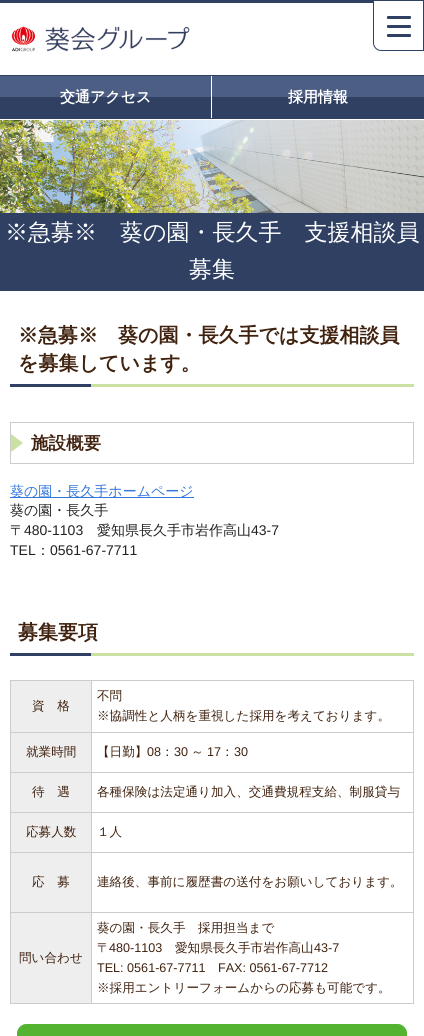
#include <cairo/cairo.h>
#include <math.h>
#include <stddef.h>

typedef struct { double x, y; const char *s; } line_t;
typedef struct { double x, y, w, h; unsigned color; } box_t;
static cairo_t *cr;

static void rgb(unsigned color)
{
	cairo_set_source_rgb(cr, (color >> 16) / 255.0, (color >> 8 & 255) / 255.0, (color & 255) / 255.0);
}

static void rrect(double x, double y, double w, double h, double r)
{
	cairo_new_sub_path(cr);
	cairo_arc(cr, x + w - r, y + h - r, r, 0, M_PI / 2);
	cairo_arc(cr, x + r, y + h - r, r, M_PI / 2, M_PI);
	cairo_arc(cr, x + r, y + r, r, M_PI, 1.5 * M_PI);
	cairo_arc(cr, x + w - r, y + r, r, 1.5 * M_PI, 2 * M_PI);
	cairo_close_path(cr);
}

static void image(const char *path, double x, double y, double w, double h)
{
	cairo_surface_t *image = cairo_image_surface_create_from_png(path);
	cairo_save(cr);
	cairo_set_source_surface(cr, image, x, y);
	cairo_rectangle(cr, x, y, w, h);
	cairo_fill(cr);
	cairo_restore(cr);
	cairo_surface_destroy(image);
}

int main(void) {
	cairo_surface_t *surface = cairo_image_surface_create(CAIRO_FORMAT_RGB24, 424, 1036);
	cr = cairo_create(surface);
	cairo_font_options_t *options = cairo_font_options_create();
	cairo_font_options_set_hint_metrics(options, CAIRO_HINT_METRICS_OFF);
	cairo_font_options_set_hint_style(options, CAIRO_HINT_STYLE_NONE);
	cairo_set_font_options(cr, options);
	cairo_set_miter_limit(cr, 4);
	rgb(0xffffff);
	cairo_paint(cr);
	rgb(0x2f4063);
	cairo_rectangle(cr, 0, 0, 373, 3);
	cairo_fill(cr);
	cairo_new_path(cr);
	cairo_move_to(cr, 373.5, 0.5);
	cairo_line_to(cr, 423.5, 0.5);
	cairo_line_to(cr, 423.5, 50.5);
	cairo_line_to(cr, 381, 50.5);
	cairo_curve_to(cr, 377, 50.5, 373.5, 47, 373.5, 43);
	cairo_close_path(cr);
	cairo_set_line_width(cr, 1);
	cairo_stroke(cr);
	rrect(387, 25, 24, 3, 1);
	cairo_fill(cr);
	rrect(387, 16, 24, 3, 1);
	cairo_fill(cr);
	rrect(387, 34, 24, 3, 1);
	cairo_fill(cr);
	image("img/1.png", 11, 26, 179, 26);
	{
		static const box_t items[] = {
			{0, 75, 424, 1, 0x2f4063},
			{0, 118, 424, 1, 0x2f4063},
			{0, 76, 211, 21, 0x4c5e84},
			{0, 97, 211, 21, 0x2f4063},
			{212, 76, 212, 21, 0x4c5e84},
			{212, 97, 212, 21, 0x2f4063},
			{0, 213, 424, 78, 0x2f4063},
		};
		for (size_t i = 0; i < sizeof items / sizeof *items; i++) {
			rgb(items[i].color);
			cairo_rectangle(cr, items[i].x, items[i].y, items[i].w, items[i].h);
			cairo_fill(cr);
		}
	}
	image("img/2.png", 0, 120, 424, 93);
	cairo_rectangle(cr, 10, 384, 81, 3);
	cairo_fill(cr);
	rgb(0xcbe1a2);
	cairo_rectangle(cr, 91, 384, 323, 3);
	cairo_fill(cr);
	cairo_rectangle(cr, 10.5, 422.5, 403, 41);
	rgb(0xcccccc);
	cairo_stroke(cr);
	rgb(0xcbe1a2);
	cairo_new_path(cr);
	cairo_move_to(cr, 11, 452);
	cairo_line_to(cr, 11, 434);
	cairo_line_to(cr, 23, 443);
	cairo_close_path(cr);
	cairo_fill(cr);
	{
		static const box_t items[] = {
			{10, 497, 184, 1, 0x3377dd},
			{10, 653, 81, 3, 0x2f4063},
			{91, 653, 323, 3, 0xcbe1a2},
			{10, 680, 404, 1, 0xcccccc},
			{10, 680, 1, 324, 0xcccccc},
			{11, 681, 80, 51, 0xeeeeee},
			{413, 680, 1, 324, 0xcccccc},
			{91, 1003, 323, 1, 0xcccccc},
			{91, 912, 1, 92, 0xcccccc},
			{91, 912, 323, 1, 0xcccccc},
			{91, 852, 1, 61, 0xcccccc},
			{91, 852, 323, 1, 0xcccccc},
			{91, 812, 1, 41, 0xcccccc},
			{91, 812, 323, 1, 0xcccccc},
			{91, 772, 1, 41, 0xcccccc},
			{91, 772, 323, 1, 0xcccccc},
			{91, 732, 1, 41, 0xcccccc},
			{91, 732, 323, 1, 0xcccccc},
			{91, 680, 1, 53, 0xcccccc},
			{10, 732, 82, 1, 0xcccccc},
			{11, 733, 80, 39, 0xeeeeee},
			{10, 772, 82, 1, 0xcccccc},
			{11, 773, 80, 39, 0xeeeeee},
			{10, 812, 82, 1, 0xcccccc},
			{11, 813, 80, 39, 0xeeeeee},
			{10, 852, 82, 1, 0xcccccc},
			{11, 853, 80, 59, 0xeeeeee},
			{10, 912, 82, 1, 0xcccccc},
			{11, 913, 80, 90, 0xeeeeee},
			{10, 1003, 82, 1, 0xcccccc},
		};
		for (size_t i = 0; i < sizeof items / sizeof *items; i++) {
			rgb(items[i].color);
			cairo_rectangle(cr, items[i].x, items[i].y, items[i].w, items[i].h);
			cairo_fill(cr);
		}
	}
	image("img/3.png", 17, 1024, 390, 12);
	cairo_select_font_face(cr, "WenQuanYi Zen Hei", CAIRO_FONT_SLANT_NORMAL, CAIRO_FONT_WEIGHT_BOLD);
	cairo_set_font_size(cr, 15);
	rgb(0xffffff);
	cairo_move_to(cr, 60, 102);
	cairo_show_text(cr, "交通アクセス");
	cairo_move_to(cr, 288, 102);
	cairo_show_text(cr, "採用情報");
	cairo_select_font_face(cr, "WenQuanYi Zen Hei Medium", CAIRO_FONT_SLANT_NORMAL, CAIRO_FONT_WEIGHT_NORMAL);
	cairo_set_font_size(cr, 23);
	cairo_move_to(cr, 5, 240);
	cairo_show_text(cr, "※急募※　葵の園・長久手　支援相談員");
	cairo_move_to(cr, 189, 277);
	cairo_show_text(cr, "募集");
	cairo_select_font_face(cr, "WenQuanYi Zen Hei", CAIRO_FONT_SLANT_NORMAL, CAIRO_FONT_WEIGHT_BOLD);
	cairo_set_font_size(cr, 20);
	rgb(0x40220f);
	cairo_move_to(cr, 18, 342);
	cairo_show_text(cr, "※急募※　葵の園・長久手では支援相談員");
	cairo_move_to(cr, 18, 370);
	cairo_show_text(cr, "を募集しています。");
	cairo_set_font_size(cr, 17.5);
	cairo_move_to(cr, 31, 449);
	cairo_show_text(cr, "施設概要");
	cairo_select_font_face(cr, "WenQuanYi Zen Hei Medium", CAIRO_FONT_SLANT_NORMAL, CAIRO_FONT_WEIGHT_NORMAL);
	cairo_set_font_size(cr, 14);
	rgb(0x3377dd);
	cairo_move_to(cr, 10, 496);
	cairo_show_text(cr, "葵の園・長久手ホームページ");
	rgb(0x222222);
	cairo_move_to(cr, 10, 515);
	cairo_show_text(cr, "葵の園・長久手");
	cairo_move_to(cr, 10, 535);
	cairo_show_text(cr, "〒");
	cairo_select_font_face(cr, "Liberation Sans", CAIRO_FONT_SLANT_NORMAL, CAIRO_FONT_WEIGHT_NORMAL);
	cairo_move_to(cr, 24, 535);
	cairo_show_text(cr, "480-1103");
	cairo_select_font_face(cr, "WenQuanYi Zen Hei Medium", CAIRO_FONT_SLANT_NORMAL, CAIRO_FONT_WEIGHT_NORMAL);
	cairo_move_to(cr, 97, 535);
	cairo_show_text(cr, "愛知県長久手市岩作高山");
	cairo_select_font_face(cr, "Liberation Sans", CAIRO_FONT_SLANT_NORMAL, CAIRO_FONT_WEIGHT_NORMAL);
	cairo_move_to(cr, 251, 535);
	cairo_show_text(cr, "43-7");
	cairo_move_to(cr, 10, 555);
	cairo_show_text(cr, "TEL");
	cairo_select_font_face(cr, "WenQuanYi Zen Hei Medium", CAIRO_FONT_SLANT_NORMAL, CAIRO_FONT_WEIGHT_NORMAL);
	cairo_move_to(cr, 36, 555);
	cairo_show_text(cr, "：");
	cairo_select_font_face(cr, "Liberation Sans", CAIRO_FONT_SLANT_NORMAL, CAIRO_FONT_WEIGHT_NORMAL);
	cairo_move_to(cr, 50, 555);
	cairo_show_text(cr, "0561-67-7711");
	cairo_select_font_face(cr, "WenQuanYi Zen Hei", CAIRO_FONT_SLANT_NORMAL, CAIRO_FONT_WEIGHT_BOLD);
	cairo_set_font_size(cr, 20);
	rgb(0x40220f);
	cairo_move_to(cr, 18, 639);
	cairo_show_text(cr, "募集要項");
	cairo_select_font_face(cr, "WenQuanYi Zen Hei Medium", CAIRO_FONT_SLANT_NORMAL, CAIRO_FONT_WEIGHT_NORMAL);
	cairo_set_font_size(cr, 12.6);
	{
		static const line_t items[] = {
			{32, 710, "資　格"},
			{97, 700, "不問"},
			{97, 720, "※協調性と人柄を重視した採用を考えております。"},
			{26, 756, "就業時間"},
			{97, 756, "【日勤】"},
		};
		for (size_t i = 0; i < sizeof items / sizeof *items; i++) {
			cairo_move_to(cr, items[i].x, items[i].y);
			cairo_show_text(cr, items[i].s);
		}
	}
	cairo_select_font_face(cr, "Liberation Sans", CAIRO_FONT_SLANT_NORMAL, CAIRO_FONT_WEIGHT_NORMAL);
	cairo_move_to(cr, 147, 756);
	cairo_show_text(cr, "08");
	cairo_select_font_face(cr, "WenQuanYi Zen Hei Medium", CAIRO_FONT_SLANT_NORMAL, CAIRO_FONT_WEIGHT_NORMAL);
	cairo_move_to(cr, 161, 756);
	cairo_show_text(cr, "：");
	cairo_select_font_face(cr, "Liberation Sans", CAIRO_FONT_SLANT_NORMAL, CAIRO_FONT_WEIGHT_NORMAL);
	cairo_move_to(cr, 174, 756);
	cairo_show_text(cr, "30");
	cairo_select_font_face(cr, "WenQuanYi Zen Hei Medium", CAIRO_FONT_SLANT_NORMAL, CAIRO_FONT_WEIGHT_NORMAL);
	cairo_move_to(cr, 191, 756);
	cairo_show_text(cr, "～");
	cairo_select_font_face(cr, "Liberation Sans", CAIRO_FONT_SLANT_NORMAL, CAIRO_FONT_WEIGHT_NORMAL);
	cairo_move_to(cr, 207, 756);
	cairo_show_text(cr, "17");
	cairo_select_font_face(cr, "WenQuanYi Zen Hei Medium", CAIRO_FONT_SLANT_NORMAL, CAIRO_FONT_WEIGHT_NORMAL);
	cairo_move_to(cr, 221, 756);
	cairo_show_text(cr, "：");
	cairo_select_font_face(cr, "Liberation Sans", CAIRO_FONT_SLANT_NORMAL, CAIRO_FONT_WEIGHT_NORMAL);
	cairo_move_to(cr, 234, 756);
	cairo_show_text(cr, "30");
	cairo_select_font_face(cr, "WenQuanYi Zen Hei Medium", CAIRO_FONT_SLANT_NORMAL, CAIRO_FONT_WEIGHT_NORMAL);
	{
		static const line_t items[] = {
			{32, 796, "待　遇"},
			{97, 796, "各種保険は法定通り加入、交通費規程支給、制服貸与"},
			{26, 836, "応募人数"},
			{97, 836, "１人"},
			{32, 886, "応　募"},
			{97, 886, "連絡後、事前に履歴書の送付をお願いしております。"},
			{19, 962, "問い合わせ"},
			{97, 932, "葵の園・長久手　採用担当まで"},
			{97, 952, "〒"},
		};
		for (size_t i = 0; i < sizeof items / sizeof *items; i++) {
			cairo_move_to(cr, items[i].x, items[i].y);
			cairo_show_text(cr, items[i].s);
		}
	}
	cairo_select_font_face(cr, "Liberation Sans", CAIRO_FONT_SLANT_NORMAL, CAIRO_FONT_WEIGHT_NORMAL);
	cairo_move_to(cr, 109, 952);
	cairo_show_text(cr, "480-1103");
	cairo_select_font_face(cr, "WenQuanYi Zen Hei Medium", CAIRO_FONT_SLANT_NORMAL, CAIRO_FONT_WEIGHT_NORMAL);
	cairo_move_to(cr, 175, 952);
	cairo_show_text(cr, "愛知県長久手市岩作高山");
	cairo_select_font_face(cr, "Liberation Sans", CAIRO_FONT_SLANT_NORMAL, CAIRO_FONT_WEIGHT_NORMAL);
	{
		static const line_t items[] = {
			{314, 952, "43-7"},
			{97, 972, "TEL: 0561-67-7711"},
			{218, 972, "FAX: 0561-67-7712"},
		};
		for (size_t i = 0; i < sizeof items / sizeof *items; i++) {
			cairo_move_to(cr, items[i].x, items[i].y);
			cairo_show_text(cr, items[i].s);
		}
	}
	cairo_select_font_face(cr, "WenQuanYi Zen Hei Medium", CAIRO_FONT_SLANT_NORMAL, CAIRO_FONT_WEIGHT_NORMAL);
	cairo_move_to(cr, 97, 992);
	cairo_show_text(cr, "※採用エントリーフォームからの応募も可能です。");
	cairo_surface_write_to_png(surface, "page.png");
	cairo_font_options_destroy(options);
	cairo_destroy(cr);
	cairo_surface_destroy(surface);
	return 0;
}
